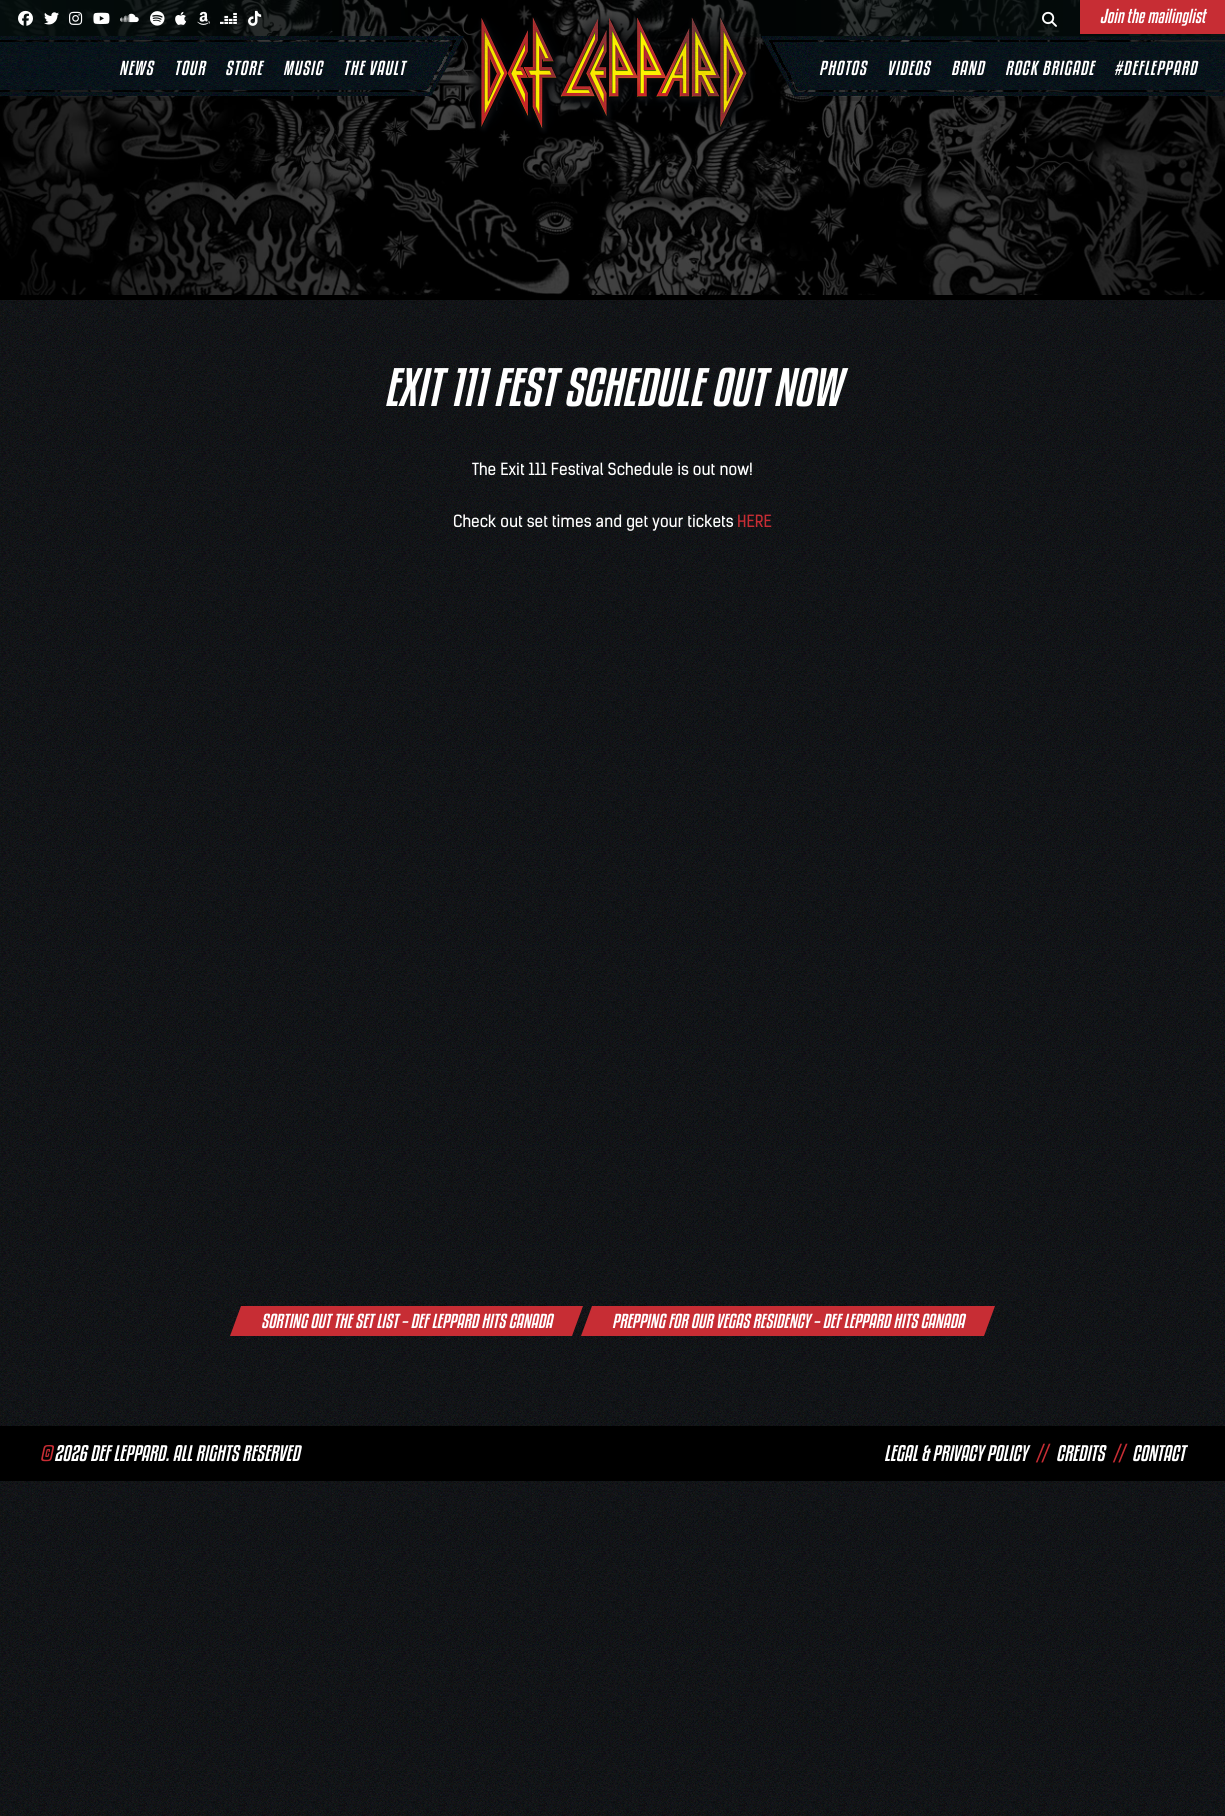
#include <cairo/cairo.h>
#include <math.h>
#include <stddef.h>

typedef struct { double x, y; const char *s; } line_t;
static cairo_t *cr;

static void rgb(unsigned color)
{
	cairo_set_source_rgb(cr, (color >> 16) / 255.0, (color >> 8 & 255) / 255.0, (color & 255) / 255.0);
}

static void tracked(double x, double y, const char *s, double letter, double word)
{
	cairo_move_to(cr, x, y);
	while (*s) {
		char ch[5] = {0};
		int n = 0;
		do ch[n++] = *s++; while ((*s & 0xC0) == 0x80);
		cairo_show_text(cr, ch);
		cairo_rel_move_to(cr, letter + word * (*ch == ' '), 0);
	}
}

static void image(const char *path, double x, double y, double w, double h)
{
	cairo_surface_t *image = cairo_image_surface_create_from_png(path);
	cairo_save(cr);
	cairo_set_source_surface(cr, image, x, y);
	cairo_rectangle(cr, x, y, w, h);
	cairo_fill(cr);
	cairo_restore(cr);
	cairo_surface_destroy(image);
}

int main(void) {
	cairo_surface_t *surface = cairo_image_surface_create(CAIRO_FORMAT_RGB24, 1225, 1816);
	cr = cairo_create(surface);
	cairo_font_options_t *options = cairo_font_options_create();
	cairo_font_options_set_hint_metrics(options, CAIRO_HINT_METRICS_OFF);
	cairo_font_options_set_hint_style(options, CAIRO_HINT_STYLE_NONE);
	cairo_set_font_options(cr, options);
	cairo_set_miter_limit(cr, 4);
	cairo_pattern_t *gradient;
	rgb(0xffffff);
	cairo_paint(cr);
	image("img/1.png", 0, 300, 1225, 1516);
	image("img/18.png", 0, 0, 1225, 295);
	image("img/16.png", 761, 36, 50, 65);
	image("img/17.png", 811, 36, 414, 65);
	gradient = cairo_pattern_create_linear(510, 19, 1225, 18);
	cairo_pattern_add_color_stop_rgba(gradient, 0.1, 0.02, 0.067, 0.063, 0);
	cairo_pattern_add_color_stop_rgba(gradient, 1, 0.02, 0.067, 0.063, 0.79);
	cairo_set_source(cr, gradient);
	cairo_pattern_destroy(gradient);
	cairo_rectangle(cr, 612, 0, 613, 37);
	cairo_fill(cr);
	image("img/2.png", 468, 11, 287, 123);
	image("img/3.png", 18, 10, 15, 16);
	image("img/4.png", 44, 12, 15, 13);
	image("img/5.png", 69, 11, 14, 14);
	image("img/6.png", 93, 12, 17, 12);
	image("img/7.png", 120, 13, 19, 10);
	image("img/8.png", 150, 11, 15, 15);
	image("img/9.png", 175, 11, 12, 14);
	image("img/10.png", 197, 11, 13, 14);
	image("img/11.png", 220, 12, 17, 12);
	image("img/12.png", 248, 10, 14, 16);
	image("img/13.png", 1042, 11, 15, 16);
	rgb(0xc72d34);
	cairo_rectangle(cr, 1080, 0, 145, 34);
	cairo_fill(cr);
	image("img/14.png", 414, 36, 50, 65);
	image("img/15.png", 0, 36, 414, 65);
	rgb(0x000000);
	cairo_rectangle(cr, 0, 295, 1225, 5);
	cairo_fill(cr);
	rgb(0xc72d34);
	cairo_rectangle(cr, 241, 1306, 331, 30);
	cairo_fill(cr);
	cairo_new_path(cr);
	cairo_move_to(cr, 241, 1336);
	cairo_line_to(cr, 230, 1336);
	cairo_line_to(cr, 241, 1306);
	cairo_close_path(cr);
	cairo_fill(cr);
	cairo_new_path(cr);
	cairo_move_to(cr, 572, 1306);
	cairo_line_to(cr, 583, 1306);
	cairo_line_to(cr, 572, 1336);
	cairo_close_path(cr);
	cairo_fill(cr);
	cairo_rectangle(cr, 592, 1306, 392, 30);
	cairo_fill(cr);
	cairo_new_path(cr);
	cairo_move_to(cr, 592, 1336);
	cairo_line_to(cr, 581, 1336);
	cairo_line_to(cr, 592, 1306);
	cairo_close_path(cr);
	cairo_fill(cr);
	cairo_new_path(cr);
	cairo_move_to(cr, 984, 1306);
	cairo_line_to(cr, 995, 1306);
	cairo_line_to(cr, 984, 1336);
	cairo_close_path(cr);
	cairo_fill(cr);
	rgb(0x000000);
	cairo_rectangle(cr, 0, 1426, 1225, 55);
	cairo_fill(cr);
	cairo_select_font_face(cr, "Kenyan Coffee", CAIRO_FONT_SLANT_ITALIC, CAIRO_FONT_WEIGHT_NORMAL);
	cairo_set_font_size(cr, 18);
	rgb(0xffffff);
	cairo_move_to(cr, 1100, 23);
	cairo_show_text(cr, "Join the mailinglist");
	{
		static const line_t items[] = {
			{119, 75, "NEWS"},
			{174, 75, "TOUR"},
			{225, 75, "STORE"},
			{283, 75, "MUSIC"},
			{343, 75, "THE VAULT"},
			{819, 75, "PHOTOS"},
			{887, 75, "VIDEOS"},
			{951, 75, "BAND"},
			{1005, 75, "ROCK BRIGADE"},
			{1114, 75, "#DEFLEPPARD"},
		};
		for (size_t i = 0; i < sizeof items / sizeof *items; i++) {
			tracked(items[i].x, items[i].y, items[i].s, 1, 0);
		}
	}
	cairo_set_font_size(cr, 48);
	cairo_move_to(cr, 384, 406);
	cairo_show_text(cr, "EXIT 111 FEST SCHEDULE OUT NOW");
	cairo_select_font_face(cr, "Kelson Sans", CAIRO_FONT_SLANT_NORMAL, CAIRO_FONT_WEIGHT_NORMAL);
	cairo_set_font_size(cr, 16);
	cairo_move_to(cr, 472, 475);
	cairo_show_text(cr, "The Exit 111 Festival Schedule is out now!");
	cairo_move_to(cr, 453, 527);
	cairo_show_text(cr, "Check out set times and get your tickets");
	rgb(0xc72d34);
	cairo_move_to(cr, 737, 527);
	cairo_show_text(cr, "HERE");
	cairo_select_font_face(cr, "Kenyan Coffee", CAIRO_FONT_SLANT_ITALIC, CAIRO_FONT_WEIGHT_NORMAL);
	cairo_set_font_size(cr, 18);
	rgb(0xffffff);
	cairo_move_to(cr, 261, 1328);
	cairo_show_text(cr, "SORTING OUT THE SET LIST – DEF LEPPARD HITS CANADA");
	cairo_move_to(cr, 612, 1328);
	cairo_show_text(cr, "PREPPING FOR OUR VEGAS RESIDENCY – DEF LEPPARD HITS CANADA");
	cairo_set_font_size(cr, 20);
	rgb(0xc72d34);
	cairo_move_to(cr, 40, 1461);
	cairo_show_text(cr, "©");
	rgb(0xffffff);
	cairo_move_to(cr, 54, 1461);
	cairo_show_text(cr, "2026 DEF LEPPARD. ALL RIGHTS RESERVED");
	cairo_move_to(cr, 884, 1461);
	cairo_show_text(cr, "LEGAL & PRIVACY POLICY");
	rgb(0xc72d34);
	cairo_move_to(cr, 1036, 1461);
	cairo_show_text(cr, "//");
	rgb(0xffffff);
	cairo_move_to(cr, 1056, 1461);
	cairo_show_text(cr, "CREDITS");
	rgb(0xc72d34);
	cairo_move_to(cr, 1113, 1461);
	cairo_show_text(cr, "//");
	rgb(0xffffff);
	cairo_move_to(cr, 1132, 1461);
	cairo_show_text(cr, "CONTACT");
	cairo_surface_write_to_png(surface, "page.png");
	cairo_font_options_destroy(options);
	cairo_destroy(cr);
	cairo_surface_destroy(surface);
	return 0;
}
